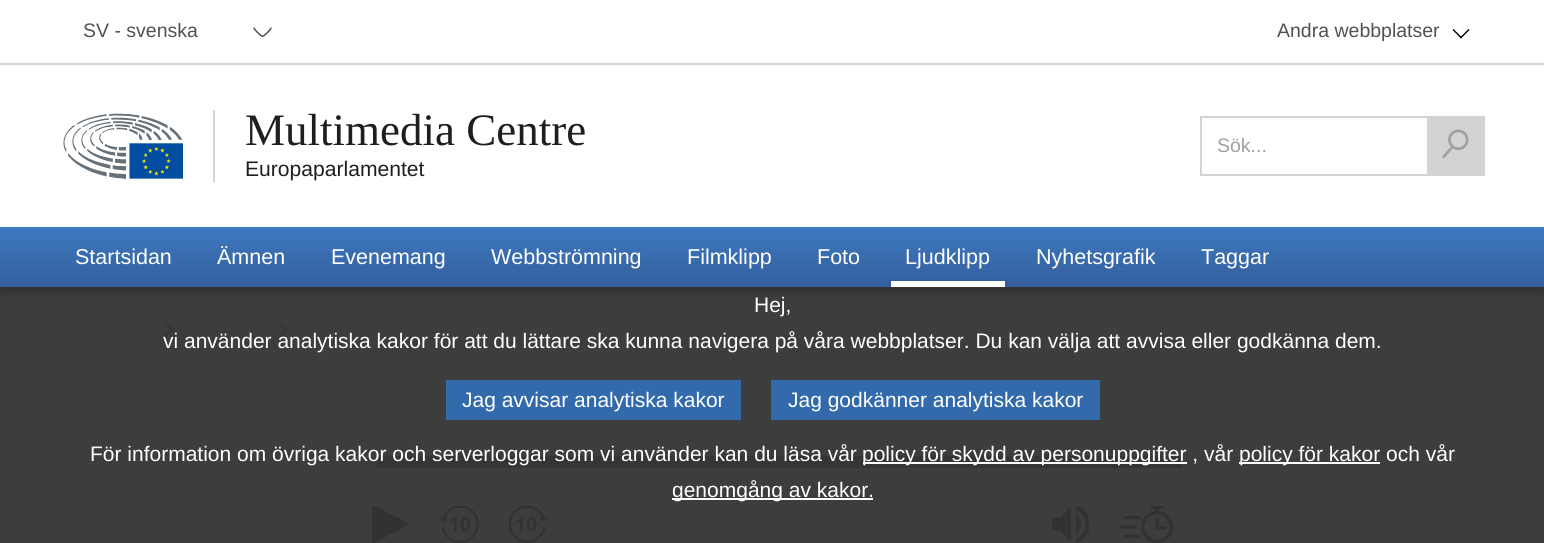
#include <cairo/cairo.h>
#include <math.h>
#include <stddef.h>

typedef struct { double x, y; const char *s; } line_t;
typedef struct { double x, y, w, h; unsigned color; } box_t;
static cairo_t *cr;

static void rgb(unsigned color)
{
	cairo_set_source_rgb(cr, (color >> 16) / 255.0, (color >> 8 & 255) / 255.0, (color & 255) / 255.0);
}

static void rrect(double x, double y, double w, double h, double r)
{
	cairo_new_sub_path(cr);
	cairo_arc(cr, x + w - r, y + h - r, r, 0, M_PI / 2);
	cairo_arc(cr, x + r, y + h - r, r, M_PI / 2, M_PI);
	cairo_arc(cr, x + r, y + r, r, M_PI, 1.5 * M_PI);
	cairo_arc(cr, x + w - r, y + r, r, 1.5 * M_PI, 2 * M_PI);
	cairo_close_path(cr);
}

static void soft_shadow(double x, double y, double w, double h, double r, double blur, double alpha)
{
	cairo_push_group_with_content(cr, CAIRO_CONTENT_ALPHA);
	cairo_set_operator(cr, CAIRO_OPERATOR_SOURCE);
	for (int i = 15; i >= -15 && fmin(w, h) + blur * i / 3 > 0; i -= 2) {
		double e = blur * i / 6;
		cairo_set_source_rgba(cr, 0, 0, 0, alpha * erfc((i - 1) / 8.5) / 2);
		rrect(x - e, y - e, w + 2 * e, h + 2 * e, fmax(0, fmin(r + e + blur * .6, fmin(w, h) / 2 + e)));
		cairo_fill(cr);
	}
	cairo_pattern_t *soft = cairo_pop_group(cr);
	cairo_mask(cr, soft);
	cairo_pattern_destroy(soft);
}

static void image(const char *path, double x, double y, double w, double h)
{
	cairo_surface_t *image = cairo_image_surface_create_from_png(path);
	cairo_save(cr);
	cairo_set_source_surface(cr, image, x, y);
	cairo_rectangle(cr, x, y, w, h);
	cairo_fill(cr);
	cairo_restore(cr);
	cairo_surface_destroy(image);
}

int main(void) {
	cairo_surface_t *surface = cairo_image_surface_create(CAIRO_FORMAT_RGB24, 1544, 543);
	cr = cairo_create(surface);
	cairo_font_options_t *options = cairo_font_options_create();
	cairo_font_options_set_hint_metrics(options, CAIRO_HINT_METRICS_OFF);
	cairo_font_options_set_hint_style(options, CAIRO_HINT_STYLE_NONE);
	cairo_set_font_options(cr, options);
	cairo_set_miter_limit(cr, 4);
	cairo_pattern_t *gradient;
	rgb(0xffffff);
	cairo_paint(cr);
	rgb(0x3d3d3d);
	cairo_rectangle(cr, 0, 287, 1544, 256);
	cairo_fill(cr);
	rgb(0xd1d3d4);
	cairo_rectangle(cr, 0, 63, 1544, 2);
	cairo_fill(cr);
	cairo_new_path(cr);
	cairo_move_to(cr, 271, 27.5);
	cairo_curve_to(cr, 271, 29.5, 268.5, 31, 267.5, 32.5);
	cairo_curve_to(cr, 262, 37.5, 263, 37.5, 257.5, 32.5);
	cairo_curve_to(cr, 256.5, 31, 254, 29.5, 254, 27.5);
	rgb(0x505154);
	cairo_set_line_width(cr, 1.5);
	cairo_stroke(cr);
	rgb(0x000000);
	cairo_new_path(cr);
	cairo_move_to(cr, 1468.5, 29);
	cairo_line_to(cr, 1469.5, 30);
	cairo_line_to(cr, 1461, 38.5);
	cairo_line_to(cr, 1460, 37.5);
	cairo_close_path(cr);
	cairo_fill(cr);
	cairo_new_path(cr);
	cairo_move_to(cr, 1453.5, 29);
	cairo_line_to(cr, 1462, 37.5);
	cairo_line_to(cr, 1461, 38.5);
	cairo_line_to(cr, 1452.5, 30);
	cairo_close_path(cr);
	cairo_fill(cr);
	image("img/1.png", 63, 113, 120, 66);
	rgb(0xd1d3d4);
	cairo_rectangle(cr, 213, 110, 2, 72);
	cairo_fill(cr);
	cairo_rectangle(cr, 1201, 117, 283, 58);
	cairo_set_line_width(cr, 2);
	cairo_stroke(cr);
	cairo_rectangle(cr, 1427, 118, 56, 56);
	cairo_fill(cr);
	image("img/2.png", 1442, 129, 27, 30);
	rgb(0x000000);
	soft_shadow(0, 233, 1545, 60, 0, 4, 0.2);
	gradient = cairo_pattern_create_linear(773, 226, 773, 287);
	cairo_pattern_add_color_stop_rgba(gradient, 0, 0.239, 0.478, 0.757, 1);
	cairo_pattern_add_color_stop_rgba(gradient, 1, 0.204, 0.369, 0.612, 1);
	cairo_set_source(cr, gradient);
	cairo_pattern_destroy(gradient);
	cairo_rectangle(cr, 0, 227, 1544, 60);
	cairo_fill(cr);
	rgb(0xffffff);
	cairo_rectangle(cr, 891, 281, 114, 6);
	cairo_fill(cr);
	image("img/3.png", 165, 322, 10, 16);
	image("img/4.png", 279, 322, 10, 16);
	rgb(0x343535);
	cairo_rectangle(cr, 375, 456, 807, 12);
	cairo_fill(cr);
	rgb(0x3b3b3b);
	cairo_arc(cr, 369, 462, 9, 0, 2 * M_PI);
	cairo_fill(cr);
	image("img/5.png", 372, 506, 36, 37);
	image("img/6.png", 440, 506, 39, 37);
	image("img/7.png", 509, 506, 39, 37);
	image("img/8.png", 1052, 506, 37, 37);
	image("img/9.png", 1119, 506, 55, 37);
	{
		static const box_t items[] = {
			{446, 380, 295, 40, 0x326aab},
			{771, 380, 329, 40, 0x326aab},
			{863, 462, 324, 2, 0xffffff},
			{1239, 462, 141, 2, 0xffffff},
			{672, 498, 201, 2, 0xffffff},
		};
		for (size_t i = 0; i < sizeof items / sizeof *items; i++) {
			rgb(items[i].color);
			cairo_rectangle(cr, items[i].x, items[i].y, items[i].w, items[i].h);
			cairo_fill(cr);
		}
	}
	cairo_select_font_face(cr, "Liberation Sans", CAIRO_FONT_SLANT_NORMAL, CAIRO_FONT_WEIGHT_NORMAL);
	cairo_set_font_size(cr, 19.5);
	rgb(0x505154);
	cairo_move_to(cr, 83, 37);
	cairo_show_text(cr, "SV - svenska");
	cairo_move_to(cr, 1277, 37);
	cairo_show_text(cr, "Andra webbplatser");
	cairo_select_font_face(cr, "Liberation Serif", CAIRO_FONT_SLANT_NORMAL, CAIRO_FONT_WEIGHT_NORMAL);
	cairo_set_font_size(cr, 45);
	rgb(0x1e1e1f);
	cairo_move_to(cr, 245, 145);
	cairo_show_text(cr, "Multimedia Centre");
	cairo_select_font_face(cr, "Liberation Sans", CAIRO_FONT_SLANT_NORMAL, CAIRO_FONT_WEIGHT_NORMAL);
	cairo_set_font_size(cr, 21.1);
	cairo_move_to(cr, 245, 176);
	cairo_show_text(cr, "Europaparlamentet");
	cairo_set_font_size(cr, 19.5);
	rgb(0xa2a1a2);
	cairo_move_to(cr, 1217, 152);
	cairo_show_text(cr, "Sök...");
	cairo_set_font_size(cr, 21.5);
	rgb(0xffffff);
	{
		static const line_t items[] = {
			{75, 264, "Startsidan"},
			{217, 264, "Ämnen"},
			{331, 264, "Evenemang"},
			{491, 264, "Webbströmning"},
			{687, 264, "Filmklipp"},
			{817, 264, "Foto"},
			{905, 264, "Ljudklipp"},
			{1036, 264, "Nyhetsgrafik"},
			{1201, 264, "Taggar"},
		};
		for (size_t i = 0; i < sizeof items / sizeof *items; i++) {
			cairo_move_to(cr, items[i].x, items[i].y);
			cairo_show_text(cr, items[i].s);
		}
	}
	cairo_set_font_size(cr, 21);
	{
		static const line_t items[] = {
			{754, 312, "Hej,"},
			{163, 348, "vi använder analytiska kakor för att du lättare ska kunna navigera på våra webbplatser. Du kan välja att avvisa eller godkänna dem."},
			{462, 407, "Jag avvisar analytiska kakor"},
			{788, 407, "Jag godkänner analytiska kakor"},
			{90, 461, "För information om övriga kakor och serverloggar som vi använder kan du läsa vår"},
			{862, 461, "policy för skydd av personuppgifter , vår"},
			{1239, 461, "policy för kakor och vår"},
			{672, 497, "genomgång av kakor."},
		};
		for (size_t i = 0; i < sizeof items / sizeof *items; i++) {
			cairo_move_to(cr, items[i].x, items[i].y);
			cairo_show_text(cr, items[i].s);
		}
	}
	cairo_surface_write_to_png(surface, "page.png");
	cairo_font_options_destroy(options);
	cairo_destroy(cr);
	cairo_surface_destroy(surface);
	return 0;
}
